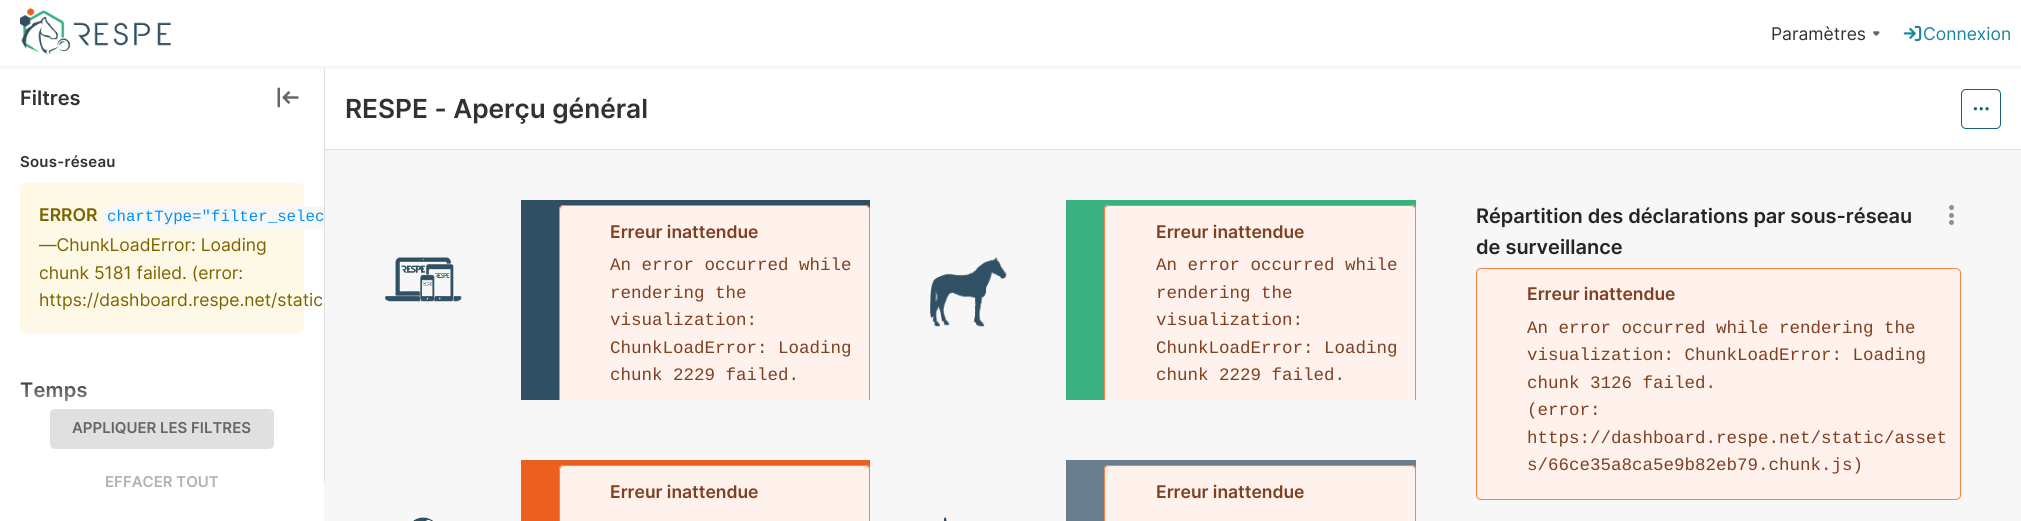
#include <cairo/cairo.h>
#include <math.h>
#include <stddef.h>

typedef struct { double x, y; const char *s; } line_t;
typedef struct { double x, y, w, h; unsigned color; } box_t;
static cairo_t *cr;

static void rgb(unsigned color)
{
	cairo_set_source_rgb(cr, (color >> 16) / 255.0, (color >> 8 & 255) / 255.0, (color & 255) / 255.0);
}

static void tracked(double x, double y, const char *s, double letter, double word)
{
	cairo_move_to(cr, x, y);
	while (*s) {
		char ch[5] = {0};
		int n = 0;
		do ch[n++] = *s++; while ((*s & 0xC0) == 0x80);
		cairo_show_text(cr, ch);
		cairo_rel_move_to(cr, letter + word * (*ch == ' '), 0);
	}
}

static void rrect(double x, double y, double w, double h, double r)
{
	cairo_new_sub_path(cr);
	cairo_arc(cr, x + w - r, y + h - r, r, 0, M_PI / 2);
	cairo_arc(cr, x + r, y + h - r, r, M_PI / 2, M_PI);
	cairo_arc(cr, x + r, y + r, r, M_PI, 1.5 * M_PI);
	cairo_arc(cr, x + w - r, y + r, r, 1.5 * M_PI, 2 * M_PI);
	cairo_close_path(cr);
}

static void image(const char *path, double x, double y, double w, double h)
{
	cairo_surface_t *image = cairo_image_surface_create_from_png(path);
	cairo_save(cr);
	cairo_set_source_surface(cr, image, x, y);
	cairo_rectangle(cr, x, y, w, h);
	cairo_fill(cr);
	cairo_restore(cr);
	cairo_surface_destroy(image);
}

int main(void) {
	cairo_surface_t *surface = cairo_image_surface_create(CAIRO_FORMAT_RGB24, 2021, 521);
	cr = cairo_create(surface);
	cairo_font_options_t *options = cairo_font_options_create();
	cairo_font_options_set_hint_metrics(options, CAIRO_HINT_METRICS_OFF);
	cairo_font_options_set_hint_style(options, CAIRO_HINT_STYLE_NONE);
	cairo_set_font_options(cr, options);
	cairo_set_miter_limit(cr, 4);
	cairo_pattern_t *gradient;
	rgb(0xf7f7f7);
	cairo_paint(cr);
	rgb(0xffffff);
	cairo_rectangle(cr, 0, 0, 2021, 66);
	cairo_fill(cr);
	image("img/1.png", 20, 8, 151, 47);
	image("img/2.png", 1873, 31, 7, 5);
	image("img/3.png", 1903, 25, 19, 17);
	cairo_rectangle(cr, 0, 69, 324, 359);
	cairo_fill(cr);
	rgb(0xe0e0e0);
	cairo_rectangle(cr, 324, 69, 1, 414);
	cairo_fill(cr);
	image("img/4.png", 277, 87, 22, 21);
	rgb(0xfef9e6);
	rrect(20, 183, 284, 150, 5);
	cairo_fill(cr);
	rgb(0xf7f7f7);
	cairo_new_path(cr);
	cairo_move_to(cr, 108, 206);
	cairo_line_to(cr, 211, 206);
	cairo_line_to(cr, 211, 229);
	cairo_line_to(cr, 108, 229);
	cairo_curve_to(cr, 105, 229, 103, 227, 103, 224);
	cairo_line_to(cr, 103, 211);
	cairo_curve_to(cr, 103, 208, 105, 206, 108, 206);
	cairo_close_path(cr);
	cairo_fill(cr);
	{
		static const box_t items[] = {
			{211, 206, 113, 23, 0xf7f7f7},
			{325, 149, 1696, 1, 0xe0e0e0},
			{325, 69, 1696, 80, 0xffffff},
		};
		for (size_t i = 0; i < sizeof items / sizeof *items; i++) {
			rgb(items[i].color);
			cairo_rectangle(cr, items[i].x, items[i].y, items[i].w, items[i].h);
			cairo_fill(cr);
		}
	}
	rrect(1961.5, 89.5, 39, 39, 4.5);
	rgb(0x156378);
	cairo_set_line_width(cr, 1);
	cairo_stroke(cr);
	image("img/5.png", 1973, 107, 16, 4);
	image("img/6.png", 385, 257, 77, 45);
	rgb(0x304f62);
	cairo_rectangle(cr, 521, 200, 349, 200);
	cairo_fill(cr);
	rgb(0xfff2ec);
	cairo_new_path(cr);
	cairo_move_to(cr, 564, 205);
	cairo_line_to(cr, 865, 205);
	cairo_curve_to(cr, 868, 205, 870, 207, 870, 210);
	cairo_line_to(cr, 870, 400);
	cairo_line_to(cr, 559, 400);
	cairo_line_to(cr, 559, 210);
	cairo_curve_to(cr, 559, 207, 561, 205, 564, 205);
	cairo_close_path(cr);
	cairo_fill(cr);
	cairo_save(cr);
	cairo_rectangle(cr, 559, 205, 311, 195);
	cairo_clip(cr);
	rrect(559.5, 205.5, 310, 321, 4.5);
	rgb(0xff7f44);
	cairo_stroke(cr);
	cairo_restore(cr);
	rgb(0xeb5f20);
	cairo_rectangle(cr, 521, 460, 349, 61);
	cairo_fill(cr);
	rgb(0xfff2ec);
	cairo_new_path(cr);
	cairo_move_to(cr, 564, 465);
	cairo_line_to(cr, 865, 465);
	cairo_curve_to(cr, 868, 465, 870, 467, 870, 470);
	cairo_line_to(cr, 870, 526);
	cairo_line_to(cr, 559, 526);
	cairo_line_to(cr, 559, 470);
	cairo_curve_to(cr, 559, 467, 561, 465, 564, 465);
	cairo_close_path(cr);
	cairo_fill(cr);
	rrect(559.5, 465.5, 310, 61, 4.5);
	rgb(0xff7f44);
	cairo_stroke(cr);
	image("img/7.png", 413, 517, 20, 4);
	image("img/8.png", 930, 257, 77, 70);
	rgb(0x3bb182);
	cairo_rectangle(cr, 1066, 200, 350, 200);
	cairo_fill(cr);
	rgb(0xfff2ec);
	cairo_new_path(cr);
	cairo_move_to(cr, 1109, 205);
	cairo_line_to(cr, 1411, 205);
	cairo_curve_to(cr, 1414, 205, 1416, 207, 1416, 210);
	cairo_line_to(cr, 1416, 400);
	cairo_line_to(cr, 1104, 400);
	cairo_line_to(cr, 1104, 210);
	cairo_curve_to(cr, 1104, 207, 1106, 205, 1109, 205);
	cairo_close_path(cr);
	cairo_fill(cr);
	cairo_save(cr);
	cairo_rectangle(cr, 1104, 205, 312, 195);
	cairo_clip(cr);
	rrect(1104.5, 205.5, 311, 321, 4.5);
	rgb(0xff7f44);
	cairo_stroke(cr);
	cairo_restore(cr);
	rgb(0x6a7e8d);
	cairo_rectangle(cr, 1066, 460, 350, 61);
	cairo_fill(cr);
	rgb(0xfff2ec);
	cairo_new_path(cr);
	cairo_move_to(cr, 1109, 465);
	cairo_line_to(cr, 1411, 465);
	cairo_curve_to(cr, 1414, 465, 1416, 467, 1416, 470);
	cairo_line_to(cr, 1416, 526);
	cairo_line_to(cr, 1104, 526);
	cairo_line_to(cr, 1104, 470);
	cairo_curve_to(cr, 1104, 467, 1106, 465, 1109, 465);
	cairo_close_path(cr);
	cairo_fill(cr);
	rrect(1104.5, 465.5, 311, 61, 4.5);
	rgb(0xff7f44);
	cairo_stroke(cr);
	image("img/9.png", 943, 517, 4, 4);
	rgb(0x879399);
	cairo_arc(cr, 1951.5, 207.5, 2.5, 0, 2 * M_PI);
	cairo_fill(cr);
	cairo_arc(cr, 1951.5, 215.5, 2.5, 0, 2 * M_PI);
	cairo_fill(cr);
	cairo_arc(cr, 1951.5, 222.5, 2.5, 0, 2 * M_PI);
	cairo_fill(cr);
	rgb(0xfff2ec);
	rrect(1476.5, 268.5, 484, 231, 4.5);
	cairo_fill_preserve(cr);
	rgb(0xff7f44);
	cairo_stroke(cr);
	cairo_select_font_face(cr, "Inter", CAIRO_FONT_SLANT_NORMAL, CAIRO_FONT_WEIGHT_NORMAL);
	cairo_set_font_size(cr, 17.5);
	rgb(0x323232);
	cairo_move_to(cr, 1771, 40);
	cairo_show_text(cr, "Paramètres");
	rgb(0x1985a0);
	cairo_move_to(cr, 1923, 40);
	cairo_show_text(cr, "Connexion");
	cairo_select_font_face(cr, "Inter SemiBold", CAIRO_FONT_SLANT_NORMAL, CAIRO_FONT_WEIGHT_NORMAL);
	cairo_set_font_size(cr, 20);
	rgb(0x323232);
	cairo_move_to(cr, 20, 105);
	cairo_show_text(cr, "Filtres");
	cairo_set_font_size(cr, 15);
	tracked(20, 167, "Sous-réseau", 0.25, 0);
	cairo_set_font_size(cr, 17.5);
	rgb(0x7d6300);
	cairo_move_to(cr, 39, 221);
	cairo_show_text(cr, "ERROR");
	cairo_select_font_face(cr, "Liberation Mono", CAIRO_FONT_SLANT_NORMAL, CAIRO_FONT_WEIGHT_NORMAL);
	cairo_set_font_size(cr, 15.75);
	rgb(0x028ffc);
	cairo_move_to(cr, 107, 221);
	cairo_show_text(cr, "chartType=\"filter_selec");
	cairo_select_font_face(cr, "Inter", CAIRO_FONT_SLANT_NORMAL, CAIRO_FONT_WEIGHT_NORMAL);
	cairo_set_font_size(cr, 17.5);
	rgb(0x7d6300);
	{
		static const line_t items[] = {
			{39, 251, "—ChunkLoadError: Loading"},
			{39, 279, "chunk 5181 failed. (error:"},
			{39, 306, "https://dashboard.respe.net/static"},
		};
		for (size_t i = 0; i < sizeof items / sizeof *items; i++) {
			cairo_move_to(cr, items[i].x, items[i].y);
			cairo_show_text(cr, items[i].s);
		}
	}
	cairo_select_font_face(cr, "Inter SemiBold", CAIRO_FONT_SLANT_NORMAL, CAIRO_FONT_WEIGHT_NORMAL);
	cairo_set_font_size(cr, 20);
	rgb(0x323232);
	tracked(20, 397, "Temps", 0.25, 0);
	gradient = cairo_pattern_create_linear(162, 379, 162, 521);
	cairo_pattern_add_color_stop_rgba(gradient, 0, 1, 1, 1, 0);
	cairo_pattern_add_color_stop_rgba(gradient, 0.35, 1, 1, 1, 1);
	cairo_set_source(cr, gradient);
	cairo_pattern_destroy(gradient);
	cairo_rectangle(cr, 0, 382, 324, 139);
	cairo_fill(cr);
	rgb(0xe0e0e0);
	rrect(50, 409, 224, 40, 5);
	cairo_fill(cr);
	cairo_set_font_size(cr, 15);
	rgb(0x666666);
	cairo_move_to(cr, 72, 433);
	cairo_show_text(cr, "APPLIQUER LES FILTRES");
	rgb(0xb2b2b2);
	cairo_move_to(cr, 105, 487);
	cairo_show_text(cr, "EFFACER TOUT");
	cairo_set_font_size(cr, 26.25);
	rgb(0x323232);
	cairo_move_to(cr, 345, 118);
	cairo_show_text(cr, "RESPE - Aperçu général");
	cairo_set_font_size(cr, 17.5);
	rgb(0x7f3f21);
	cairo_move_to(cr, 610, 238);
	cairo_show_text(cr, "Erreur inattendue");
	cairo_select_font_face(cr, "Liberation Mono", CAIRO_FONT_SLANT_NORMAL, CAIRO_FONT_WEIGHT_NORMAL);
	{
		static const line_t items[] = {
			{610, 270, "An error occurred while"},
			{610, 298, "rendering the"},
			{610, 325, "visualization:"},
			{610, 353, "ChunkLoadError: Loading"},
			{610, 380, "chunk 2229 failed."},
		};
		for (size_t i = 0; i < sizeof items / sizeof *items; i++) {
			cairo_move_to(cr, items[i].x, items[i].y);
			cairo_show_text(cr, items[i].s);
		}
	}
	cairo_select_font_face(cr, "Inter SemiBold", CAIRO_FONT_SLANT_NORMAL, CAIRO_FONT_WEIGHT_NORMAL);
	cairo_move_to(cr, 610, 498);
	cairo_show_text(cr, "Erreur inattendue");
	cairo_move_to(cr, 1156, 238);
	cairo_show_text(cr, "Erreur inattendue");
	cairo_select_font_face(cr, "Liberation Mono", CAIRO_FONT_SLANT_NORMAL, CAIRO_FONT_WEIGHT_NORMAL);
	{
		static const line_t items[] = {
			{1156, 270, "An error occurred while"},
			{1156, 298, "rendering the"},
			{1156, 325, "visualization:"},
			{1156, 353, "ChunkLoadError: Loading"},
			{1156, 380, "chunk 2229 failed."},
		};
		for (size_t i = 0; i < sizeof items / sizeof *items; i++) {
			cairo_move_to(cr, items[i].x, items[i].y);
			cairo_show_text(cr, items[i].s);
		}
	}
	cairo_select_font_face(cr, "Inter SemiBold", CAIRO_FONT_SLANT_NORMAL, CAIRO_FONT_WEIGHT_NORMAL);
	cairo_move_to(cr, 1156, 498);
	cairo_show_text(cr, "Erreur inattendue");
	cairo_set_font_size(cr, 20);
	rgb(0x252525);
	cairo_move_to(cr, 1476, 223);
	cairo_show_text(cr, "Répartition des déclarations par sous-réseau");
	cairo_move_to(cr, 1476, 254);
	cairo_show_text(cr, "de surveillance");
	cairo_set_font_size(cr, 17.5);
	rgb(0x7f3f21);
	cairo_move_to(cr, 1527, 300);
	cairo_show_text(cr, "Erreur inattendue");
	cairo_select_font_face(cr, "Liberation Mono", CAIRO_FONT_SLANT_NORMAL, CAIRO_FONT_WEIGHT_NORMAL);
	{
		static const line_t items[] = {
			{1527, 333, "An error occurred while rendering the"},
			{1527, 360, "visualization: ChunkLoadError: Loading"},
			{1527, 388, "chunk 3126 failed."},
			{1527, 415, "(error:"},
			{1527, 443, "https://dashboard.respe.net/static/asset"},
			{1527, 470, "s/66ce35a8ca5e9b82eb79.chunk.js)"},
		};
		for (size_t i = 0; i < sizeof items / sizeof *items; i++) {
			cairo_move_to(cr, items[i].x, items[i].y);
			cairo_show_text(cr, items[i].s);
		}
	}
	cairo_surface_write_to_png(surface, "page.png");
	cairo_font_options_destroy(options);
	cairo_destroy(cr);
	cairo_surface_destroy(surface);
	return 0;
}
